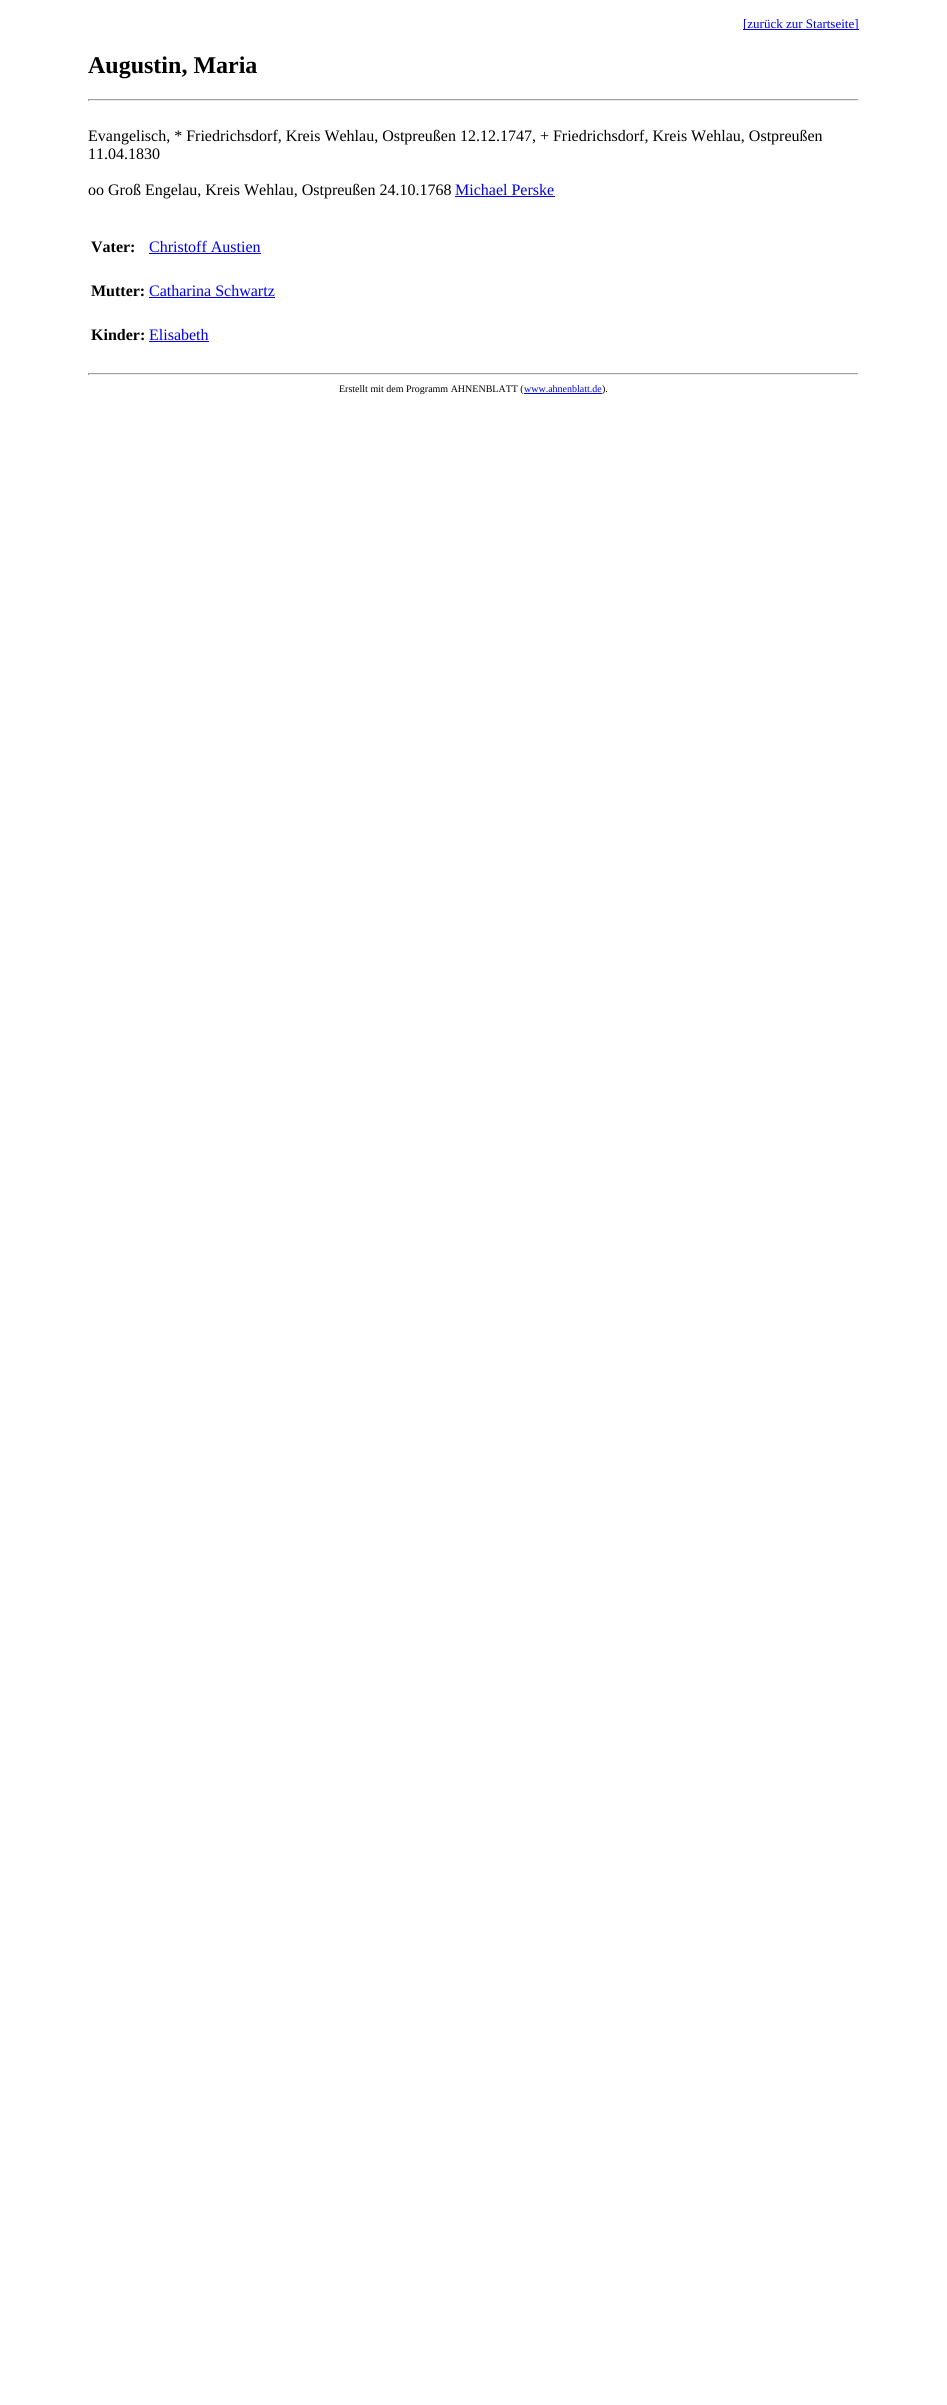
#include <cairo/cairo.h>
#include <math.h>
#include <stddef.h>

typedef struct { double x, y; const char *s; } line_t;
typedef struct { double x, y, w, h; unsigned color; } box_t;
static cairo_t *cr;

static void rgb(unsigned color)
{
	cairo_set_source_rgb(cr, (color >> 16) / 255.0, (color >> 8 & 255) / 255.0, (color & 255) / 255.0);
}

int main(void) {
	cairo_surface_t *surface = cairo_image_surface_create(CAIRO_FORMAT_RGB24, 947, 2405);
	cr = cairo_create(surface);
	cairo_font_options_t *options = cairo_font_options_create();
	cairo_font_options_set_hint_metrics(options, CAIRO_HINT_METRICS_OFF);
	cairo_font_options_set_hint_style(options, CAIRO_HINT_STYLE_NONE);
	cairo_set_font_options(cr, options);
	cairo_set_miter_limit(cr, 4);
	rgb(0xffffff);
	cairo_paint(cr);
	{
		static const box_t items[] = {
			{743, 29, 116, 1, 0x0000ee},
			{88, 99, 771, 1, 0x9f9f9f},
			{858, 99, 1, 2, 0xeeeeee},
			{88, 100, 771, 1, 0xeeeeee},
			{88, 99, 1, 2, 0x9f9f9f},
			{455, 196, 100, 1, 0x0000ee},
			{149, 253, 112, 1, 0x0000ee},
			{149, 297, 126, 1, 0x0000ee},
			{149, 341, 60, 1, 0x0000ee},
			{88, 373, 771, 1, 0x9f9f9f},
			{858, 373, 1, 2, 0xeeeeee},
			{88, 374, 771, 1, 0xeeeeee},
			{88, 373, 1, 2, 0x9f9f9f},
			{524, 393, 78, 1, 0x0000ee},
		};
		for (size_t i = 0; i < sizeof items / sizeof *items; i++) {
			rgb(items[i].color);
			cairo_rectangle(cr, items[i].x, items[i].y, items[i].w, items[i].h);
			cairo_fill(cr);
		}
	}
	cairo_select_font_face(cr, "Liberation Serif", CAIRO_FONT_SLANT_NORMAL, CAIRO_FONT_WEIGHT_NORMAL);
	cairo_set_font_size(cr, 13);
	cairo_move_to(cr, 743, 28);
	cairo_show_text(cr, "[zurück zur Startseite]");
	cairo_select_font_face(cr, "Liberation Serif", CAIRO_FONT_SLANT_NORMAL, CAIRO_FONT_WEIGHT_BOLD);
	cairo_set_font_size(cr, 24);
	rgb(0x000000);
	cairo_move_to(cr, 88, 73);
	cairo_show_text(cr, "Augustin, Maria");
	cairo_select_font_face(cr, "Liberation Serif", CAIRO_FONT_SLANT_NORMAL, CAIRO_FONT_WEIGHT_NORMAL);
	cairo_set_font_size(cr, 16);
	{
		static const line_t items[] = {
			{88, 141, "Evangelisch, * Friedrichsdorf, Kreis Wehlau, Ostpreußen 12.12.1747, + Friedrichsdorf, Kreis Wehlau, Ostpreußen"},
			{88, 159, "11.04.1830"},
			{88, 195, "oo Groß Engelau, Kreis Wehlau, Ostpreußen 24.10.1768"},
		};
		for (size_t i = 0; i < sizeof items / sizeof *items; i++) {
			cairo_move_to(cr, items[i].x, items[i].y);
			cairo_show_text(cr, items[i].s);
		}
	}
	rgb(0x0000ee);
	cairo_move_to(cr, 455, 195);
	cairo_show_text(cr, "Michael Perske");
	cairo_select_font_face(cr, "Liberation Serif", CAIRO_FONT_SLANT_NORMAL, CAIRO_FONT_WEIGHT_BOLD);
	rgb(0x000000);
	cairo_move_to(cr, 91, 252);
	cairo_show_text(cr, "Vater:");
	cairo_select_font_face(cr, "Liberation Serif", CAIRO_FONT_SLANT_NORMAL, CAIRO_FONT_WEIGHT_NORMAL);
	rgb(0x0000ee);
	cairo_move_to(cr, 149, 252);
	cairo_show_text(cr, "Christoff Austien");
	cairo_select_font_face(cr, "Liberation Serif", CAIRO_FONT_SLANT_NORMAL, CAIRO_FONT_WEIGHT_BOLD);
	rgb(0x000000);
	cairo_move_to(cr, 91, 296);
	cairo_show_text(cr, "Mutter:");
	cairo_select_font_face(cr, "Liberation Serif", CAIRO_FONT_SLANT_NORMAL, CAIRO_FONT_WEIGHT_NORMAL);
	rgb(0x0000ee);
	cairo_move_to(cr, 149, 296);
	cairo_show_text(cr, "Catharina Schwartz");
	cairo_select_font_face(cr, "Liberation Serif", CAIRO_FONT_SLANT_NORMAL, CAIRO_FONT_WEIGHT_BOLD);
	rgb(0x000000);
	cairo_move_to(cr, 91, 340);
	cairo_show_text(cr, "Kinder:");
	cairo_select_font_face(cr, "Liberation Serif", CAIRO_FONT_SLANT_NORMAL, CAIRO_FONT_WEIGHT_NORMAL);
	rgb(0x0000ee);
	cairo_move_to(cr, 149, 340);
	cairo_show_text(cr, "Elisabeth");
	cairo_set_font_size(cr, 10);
	rgb(0x000000);
	cairo_move_to(cr, 339, 392);
	cairo_show_text(cr, "Erstellt mit dem Programm AHNENBLATT (");
	rgb(0x0000ee);
	cairo_move_to(cr, 524, 392);
	cairo_show_text(cr, "www.ahnenblatt.de");
	rgb(0x000000);
	cairo_move_to(cr, 602, 392);
	cairo_show_text(cr, ").");
	cairo_surface_write_to_png(surface, "page.png");
	cairo_font_options_destroy(options);
	cairo_destroy(cr);
	cairo_surface_destroy(surface);
	return 0;
}
